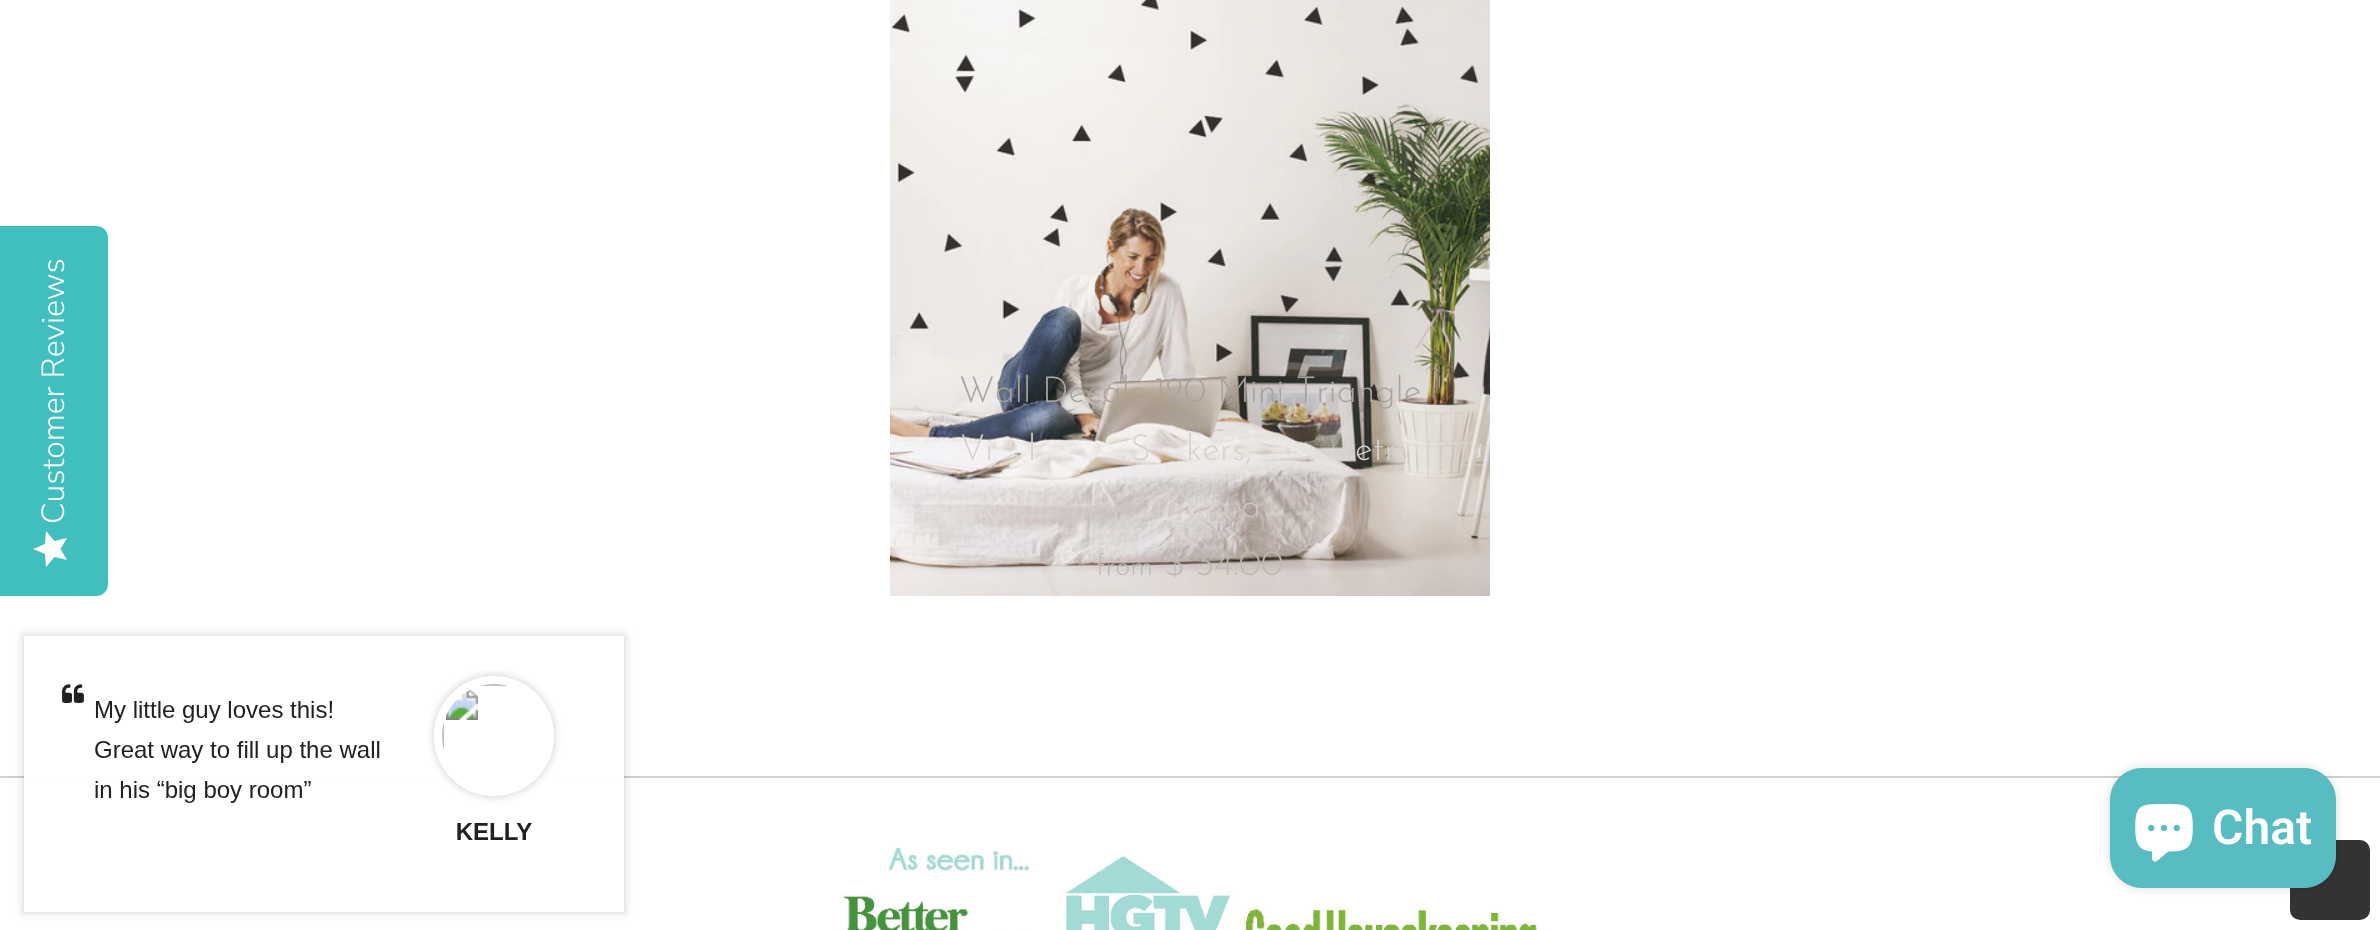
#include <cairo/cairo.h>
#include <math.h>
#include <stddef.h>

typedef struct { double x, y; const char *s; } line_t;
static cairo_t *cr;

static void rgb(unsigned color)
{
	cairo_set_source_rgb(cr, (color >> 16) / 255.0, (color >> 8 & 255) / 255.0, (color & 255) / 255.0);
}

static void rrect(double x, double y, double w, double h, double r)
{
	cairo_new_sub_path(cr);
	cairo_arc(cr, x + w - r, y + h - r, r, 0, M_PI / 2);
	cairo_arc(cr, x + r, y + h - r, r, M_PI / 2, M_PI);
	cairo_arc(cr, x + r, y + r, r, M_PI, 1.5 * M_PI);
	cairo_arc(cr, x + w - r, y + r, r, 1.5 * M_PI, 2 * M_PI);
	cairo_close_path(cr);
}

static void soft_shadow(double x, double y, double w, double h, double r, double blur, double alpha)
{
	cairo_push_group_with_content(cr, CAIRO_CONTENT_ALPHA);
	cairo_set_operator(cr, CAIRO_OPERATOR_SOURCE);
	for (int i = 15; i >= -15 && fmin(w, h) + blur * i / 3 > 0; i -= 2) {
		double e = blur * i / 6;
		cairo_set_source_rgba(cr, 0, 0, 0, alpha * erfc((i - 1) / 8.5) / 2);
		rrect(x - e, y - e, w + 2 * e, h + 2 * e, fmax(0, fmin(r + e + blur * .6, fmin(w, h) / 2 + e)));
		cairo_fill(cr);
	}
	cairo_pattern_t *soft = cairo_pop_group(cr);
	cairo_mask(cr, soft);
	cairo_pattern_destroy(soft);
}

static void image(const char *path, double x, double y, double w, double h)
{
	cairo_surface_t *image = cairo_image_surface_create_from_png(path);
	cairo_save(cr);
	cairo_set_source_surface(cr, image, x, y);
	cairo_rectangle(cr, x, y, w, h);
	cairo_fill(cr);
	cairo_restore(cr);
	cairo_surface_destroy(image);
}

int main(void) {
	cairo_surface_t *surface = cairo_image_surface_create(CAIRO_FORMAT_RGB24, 2380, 930);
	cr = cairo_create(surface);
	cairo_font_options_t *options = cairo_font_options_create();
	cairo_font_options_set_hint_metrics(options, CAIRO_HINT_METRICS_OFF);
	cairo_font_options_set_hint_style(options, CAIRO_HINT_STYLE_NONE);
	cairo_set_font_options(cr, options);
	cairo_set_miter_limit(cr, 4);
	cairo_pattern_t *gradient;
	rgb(0xffffff);
	cairo_paint(cr);
	rgb(0x41bfbf);
	cairo_new_path(cr);
	cairo_move_to(cr, 0, 596);
	cairo_line_to(cr, 0, 226);
	cairo_line_to(cr, 96, 226);
	cairo_curve_to(cr, 103, 226, 108, 231, 108, 238);
	cairo_line_to(cr, 108, 584);
	cairo_curve_to(cr, 108, 591, 103, 596, 96, 596);
	cairo_close_path(cr);
	cairo_fill(cr);
	gradient = cairo_pattern_create_linear(33, 567, 33, 531);
	cairo_pattern_add_color_stop_rgba(gradient, 1, 0.996, 0.996, 0.996, 1);
	cairo_pattern_add_color_stop_rgba(gradient, 1, 0.918, 0.918, 0.918, 1);
	cairo_set_source(cr, gradient);
	cairo_pattern_destroy(gradient);
	cairo_new_path(cr);
	cairo_move_to(cr, 60.5, 549);
	cairo_line_to(cr, 67, 538);
	cairo_line_to(cr, 54.5, 541);
	cairo_line_to(cr, 46, 531);
	cairo_line_to(cr, 45, 544);
	cairo_line_to(cr, 33, 549);
	cairo_line_to(cr, 45, 554);
	cairo_line_to(cr, 46, 567);
	cairo_line_to(cr, 54.5, 557);
	cairo_line_to(cr, 67, 560);
	cairo_close_path(cr);
	cairo_fill(cr);
	image("img/1.png", 890, 0, 600, 596);
	rgb(0xd1cfcf);
	cairo_rectangle(cr, 0, 776, 2380, 2);
	cairo_fill(cr);
	cairo_save(cr);
	cairo_set_fill_rule(cr, CAIRO_FILL_RULE_EVEN_ODD);
	cairo_new_path(cr);
	cairo_move_to(cr, 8, 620);
	cairo_line_to(cr, 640, 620);
	cairo_line_to(cr, 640, 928);
	cairo_line_to(cr, 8, 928);
	cairo_close_path(cr);
	cairo_move_to(cr, 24, 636);
	cairo_line_to(cr, 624, 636);
	cairo_line_to(cr, 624, 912);
	cairo_line_to(cr, 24, 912);
	cairo_close_path(cr);
	cairo_clip(cr);
	rgb(0x000000);
	soft_shadow(24, 636, 600, 276, 0, 5, 0.2);
	cairo_restore(cr);
	image("img/2.png", 24, 670, 600, 170);
	image("img/3.png", 843, 847, 698, 83);
	image("img/5.png", 2290, 840, 80, 80);
	rgb(0x000000);
	soft_shadow(2110, 768, 226, 120, 32, 5, 0.15);
	rgb(0x57bdc3);
	rrect(2110, 768, 226, 120, 32);
	cairo_fill(cr);
	image("img/4.png", 2135, 804, 58, 58);
	cairo_select_font_face(cr, "Nunito Sans Light", CAIRO_FONT_SLANT_NORMAL, CAIRO_FONT_WEIGHT_NORMAL);
	cairo_set_font_size(cr, 32);
	rgb(0xfefefe);
	cairo_save(cr);
	cairo_translate(cr, 64, 524);
	cairo_rotate(cr, -90 * M_PI / 180);
	cairo_move_to(cr, 0, 0);
	cairo_show_text(cr, "Customer Reviews");
	cairo_restore(cr);
	cairo_select_font_face(cr, "Josefin Sans Thin", CAIRO_FONT_SLANT_NORMAL, CAIRO_FONT_WEIGHT_NORMAL);
	cairo_set_font_size(cr, 36);
	rgb(0xa8a39f);
	cairo_move_to(cr, 959, 402);
	cairo_show_text(cr, "Wall Decals 120 Mini Triangle");
	rgb(0xd5d1cc);
	{
		static const line_t items[] = {
			{960, 460, "Vi"},
			{1028, 460, "l"},
			{1130, 460, "S"},
			{1186, 460, "kers,"},
			{1355, 460, "etr"},
		};
		for (size_t i = 0; i < sizeof items / sizeof *items; i++) {
			cairo_move_to(cr, items[i].x, items[i].y);
			cairo_show_text(cr, items[i].s);
		}
	}
	rgb(0xccc5c1);
	cairo_move_to(cr, 1241, 517);
	cairo_show_text(cr, "a");
	cairo_set_font_size(cr, 29);
	rgb(0xbeb7b2);
	cairo_move_to(cr, 1096, 575);
	cairo_show_text(cr, "from");
	cairo_set_font_size(cr, 36);
	cairo_move_to(cr, 1164, 575);
	cairo_show_text(cr, "$ 34.00");
	cairo_select_font_face(cr, "Roboto SemiBold", CAIRO_FONT_SLANT_NORMAL, CAIRO_FONT_WEIGHT_NORMAL);
	cairo_set_font_size(cr, 48);
	rgb(0xfefefe);
	cairo_move_to(cr, 2212, 844);
	cairo_show_text(cr, "Chat");
	cairo_surface_write_to_png(surface, "page.png");
	cairo_font_options_destroy(options);
	cairo_destroy(cr);
	cairo_surface_destroy(surface);
	return 0;
}
